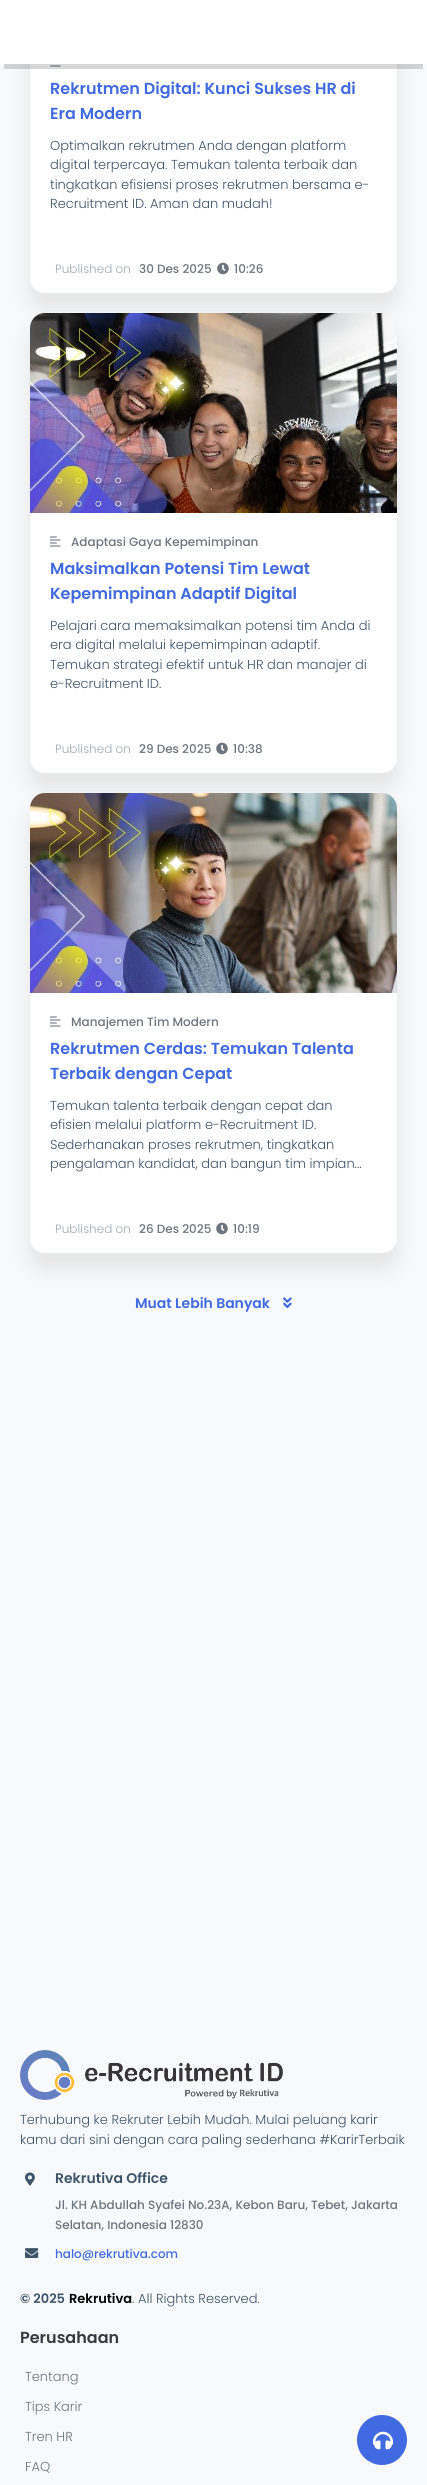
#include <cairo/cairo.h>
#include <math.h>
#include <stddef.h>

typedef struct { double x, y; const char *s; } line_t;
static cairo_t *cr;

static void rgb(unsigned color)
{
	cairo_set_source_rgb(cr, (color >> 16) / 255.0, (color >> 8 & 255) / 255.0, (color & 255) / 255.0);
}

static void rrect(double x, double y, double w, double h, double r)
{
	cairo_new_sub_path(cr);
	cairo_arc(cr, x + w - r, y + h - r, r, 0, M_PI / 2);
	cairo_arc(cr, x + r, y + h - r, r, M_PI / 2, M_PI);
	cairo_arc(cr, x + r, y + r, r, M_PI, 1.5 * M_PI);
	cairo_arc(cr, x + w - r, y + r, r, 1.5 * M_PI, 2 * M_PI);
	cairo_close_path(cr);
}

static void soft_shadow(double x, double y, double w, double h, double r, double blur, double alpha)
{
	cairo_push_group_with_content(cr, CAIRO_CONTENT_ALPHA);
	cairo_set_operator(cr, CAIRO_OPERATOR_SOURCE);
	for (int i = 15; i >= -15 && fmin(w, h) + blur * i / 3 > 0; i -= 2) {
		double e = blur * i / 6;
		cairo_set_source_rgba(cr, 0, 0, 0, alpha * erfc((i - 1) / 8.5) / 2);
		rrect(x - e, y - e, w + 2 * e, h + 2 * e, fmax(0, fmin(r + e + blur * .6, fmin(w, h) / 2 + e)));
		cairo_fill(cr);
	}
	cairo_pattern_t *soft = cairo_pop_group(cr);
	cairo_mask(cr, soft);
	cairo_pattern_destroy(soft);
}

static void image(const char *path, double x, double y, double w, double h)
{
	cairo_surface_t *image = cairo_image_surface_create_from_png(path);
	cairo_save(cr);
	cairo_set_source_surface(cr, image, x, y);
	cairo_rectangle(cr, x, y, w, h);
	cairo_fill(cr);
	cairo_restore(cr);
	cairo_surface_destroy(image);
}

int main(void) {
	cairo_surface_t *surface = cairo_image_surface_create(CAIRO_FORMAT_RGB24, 427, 2485);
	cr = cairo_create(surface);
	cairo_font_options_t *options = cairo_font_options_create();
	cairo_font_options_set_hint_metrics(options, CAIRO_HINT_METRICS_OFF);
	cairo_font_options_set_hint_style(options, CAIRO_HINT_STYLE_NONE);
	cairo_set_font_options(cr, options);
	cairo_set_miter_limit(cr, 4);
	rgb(0xf8f9fa);
	cairo_paint(cr);
	rgb(0x333333);
	soft_shadow(29, -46, 369, 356, 16, 10, 0.1);
	rgb(0xffffff);
	rrect(30, -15, 367, 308, 15);
	cairo_fill(cr);
	cairo_rectangle(cr, 0, 0, 427, 64);
	cairo_fill(cr);
	image("img/1.png", 50, 65, 11, 2);
	cairo_set_source_rgba(cr, 0, 0, 0, 0.16);
	cairo_rectangle(cr, 4, 64, 419, 5);
	cairo_fill(cr);
	image("img/2.png", 217, 262, 12, 13);
	rgb(0x333333);
	soft_shadow(29, 328, 369, 462, 16, 10, 0.1);
	rgb(0xffffff);
	rrect(30, 313, 367, 460, 15);
	cairo_fill(cr);
	image("img/3.png", 30, 313, 367, 200);
	image("img/4.png", 50, 536, 11, 11);
	image("img/2.png", 216, 742, 12, 13);
	rgb(0x333333);
	soft_shadow(29, 808, 369, 462, 16, 10, 0.1);
	rgb(0xffffff);
	rrect(30, 793, 367, 460, 15);
	cairo_fill(cr);
	image("img/5.png", 30, 793, 367, 200);
	image("img/4.png", 50, 1016, 11, 11);
	image("img/2.png", 216, 1222, 12, 13);
	image("img/6.png", 283, 1297, 9, 12);
	image("img/7.png", 20, 2050, 263, 50);
	image("img/8.png", 25, 2172, 10, 14);
	image("img/9.png", 25, 2248, 14, 10);
	rgb(0x4169e1);
	cairo_arc(cr, 382, 2440, 25, 0, 2 * M_PI);
	cairo_fill(cr);
	image("img/10.png", 373, 2431, 20, 19);
	cairo_select_font_face(cr, "Poppins SemiBold", CAIRO_FONT_SLANT_NORMAL, CAIRO_FONT_WEIGHT_NORMAL);
	cairo_set_font_size(cr, 16);
	cairo_move_to(cr, 50, 94);
	cairo_show_text(cr, "Rekrutmen Digital: Kunci Sukses HR di");
	cairo_move_to(cr, 50, 119);
	cairo_show_text(cr, "Era Modern");
	cairo_select_font_face(cr, "Poppins Light", CAIRO_FONT_SLANT_NORMAL, CAIRO_FONT_WEIGHT_NORMAL);
	cairo_set_font_size(cr, 13);
	rgb(0x3e5569);
	{
		static const line_t items[] = {
			{50, 150, "Optimalkan rekrutmen Anda dengan platform"},
			{50, 169, "digital terpercaya. Temukan talenta terbaik dan"},
			{50, 189, "tingkatkan efisiensi proses rekrutmen bersama e-"},
			{50, 208, "Recruitment ID. Aman dan mudah!"},
		};
		for (size_t i = 0; i < sizeof items / sizeof *items; i++) {
			cairo_move_to(cr, items[i].x, items[i].y);
			cairo_show_text(cr, items[i].s);
		}
	}
	cairo_set_font_size(cr, 12);
	rgb(0xa1aab2);
	cairo_move_to(cr, 55, 273);
	cairo_show_text(cr, "Published on");
	cairo_select_font_face(cr, "Poppins Medium", CAIRO_FONT_SLANT_NORMAL, CAIRO_FONT_WEIGHT_NORMAL);
	rgb(0x6c757d);
	{
		static const line_t items[] = {
			{139, 273, "30 Des 2025"},
			{234, 273, "10:26"},
			{71, 546, "Adaptasi Gaya Kepemimpinan"},
		};
		for (size_t i = 0; i < sizeof items / sizeof *items; i++) {
			cairo_move_to(cr, items[i].x, items[i].y);
			cairo_show_text(cr, items[i].s);
		}
	}
	cairo_select_font_face(cr, "Poppins SemiBold", CAIRO_FONT_SLANT_NORMAL, CAIRO_FONT_WEIGHT_NORMAL);
	cairo_set_font_size(cr, 16);
	rgb(0x4169e1);
	cairo_move_to(cr, 50, 574);
	cairo_show_text(cr, "Maksimalkan Potensi Tim Lewat");
	cairo_move_to(cr, 50, 599);
	cairo_show_text(cr, "Kepemimpinan Adaptif Digital");
	cairo_select_font_face(cr, "Poppins Light", CAIRO_FONT_SLANT_NORMAL, CAIRO_FONT_WEIGHT_NORMAL);
	cairo_set_font_size(cr, 13);
	rgb(0x3e5569);
	{
		static const line_t items[] = {
			{50, 630, "Pelajari cara memaksimalkan potensi tim Anda di"},
			{50, 649, "era digital melalui kepemimpinan adaptif."},
			{50, 669, "Temukan strategi efektif untuk HR dan manajer di"},
			{50, 688, "e-Recruitment ID."},
		};
		for (size_t i = 0; i < sizeof items / sizeof *items; i++) {
			cairo_move_to(cr, items[i].x, items[i].y);
			cairo_show_text(cr, items[i].s);
		}
	}
	cairo_set_font_size(cr, 12);
	rgb(0xa1aab2);
	cairo_move_to(cr, 55, 753);
	cairo_show_text(cr, "Published on");
	cairo_select_font_face(cr, "Poppins Medium", CAIRO_FONT_SLANT_NORMAL, CAIRO_FONT_WEIGHT_NORMAL);
	rgb(0x6c757d);
	{
		static const line_t items[] = {
			{139, 753, "29 Des 2025"},
			{233, 753, "10:38"},
			{71, 1026, "Manajemen Tim Modern"},
		};
		for (size_t i = 0; i < sizeof items / sizeof *items; i++) {
			cairo_move_to(cr, items[i].x, items[i].y);
			cairo_show_text(cr, items[i].s);
		}
	}
	cairo_select_font_face(cr, "Poppins SemiBold", CAIRO_FONT_SLANT_NORMAL, CAIRO_FONT_WEIGHT_NORMAL);
	cairo_set_font_size(cr, 16);
	rgb(0x4169e1);
	cairo_move_to(cr, 50, 1054);
	cairo_show_text(cr, "Rekrutmen Cerdas: Temukan Talenta");
	cairo_move_to(cr, 50, 1079);
	cairo_show_text(cr, "Terbaik dengan Cepat");
	cairo_select_font_face(cr, "Poppins Light", CAIRO_FONT_SLANT_NORMAL, CAIRO_FONT_WEIGHT_NORMAL);
	cairo_set_font_size(cr, 13);
	rgb(0x3e5569);
	{
		static const line_t items[] = {
			{50, 1110, "Temukan talenta terbaik dengan cepat dan"},
			{50, 1129, "efisien melalui platform e-Recruitment ID."},
			{50, 1149, "Sederhanakan proses rekrutmen, tingkatkan"},
			{50, 1168, "pengalaman kandidat, dan bangun tim impian..."},
		};
		for (size_t i = 0; i < sizeof items / sizeof *items; i++) {
			cairo_move_to(cr, items[i].x, items[i].y);
			cairo_show_text(cr, items[i].s);
		}
	}
	cairo_set_font_size(cr, 12);
	rgb(0xa1aab2);
	cairo_move_to(cr, 55, 1233);
	cairo_show_text(cr, "Published on");
	cairo_select_font_face(cr, "Poppins Medium", CAIRO_FONT_SLANT_NORMAL, CAIRO_FONT_WEIGHT_NORMAL);
	rgb(0x6c757d);
	cairo_move_to(cr, 139, 1233);
	cairo_show_text(cr, "26 Des 2025");
	cairo_move_to(cr, 233, 1233);
	cairo_show_text(cr, "10:19");
	cairo_select_font_face(cr, "Poppins SemiBold", CAIRO_FONT_SLANT_NORMAL, CAIRO_FONT_WEIGHT_NORMAL);
	cairo_set_font_size(cr, 14);
	rgb(0x4169e1);
	cairo_move_to(cr, 135, 1308);
	cairo_show_text(cr, "Muat Lebih Banyak");
	cairo_select_font_face(cr, "Poppins Light", CAIRO_FONT_SLANT_NORMAL, CAIRO_FONT_WEIGHT_NORMAL);
	cairo_set_font_size(cr, 13);
	rgb(0x3e5569);
	cairo_move_to(cr, 20, 2124);
	cairo_show_text(cr, "Terhubung ke Rekruter Lebih Mudah. Mulai peluang karir");
	cairo_move_to(cr, 20, 2144);
	cairo_show_text(cr, "kamu dari sini dengan cara paling sederhana #KarirTerbaik");
	cairo_select_font_face(cr, "Poppins SemiBold", CAIRO_FONT_SLANT_NORMAL, CAIRO_FONT_WEIGHT_NORMAL);
	cairo_set_font_size(cr, 14);
	cairo_move_to(cr, 55, 2183);
	cairo_show_text(cr, "Rekrutiva Office");
	cairo_select_font_face(cr, "Poppins Medium", CAIRO_FONT_SLANT_NORMAL, CAIRO_FONT_WEIGHT_NORMAL);
	cairo_set_font_size(cr, 12);
	rgb(0x6c757d);
	cairo_move_to(cr, 55, 2209);
	cairo_show_text(cr, "Jl. KH Abdullah Syafei No.23A, Kebon Baru, Tebet, Jakarta");
	cairo_move_to(cr, 55, 2229);
	cairo_show_text(cr, "Selatan, Indonesia 12830");
	rgb(0x4169e1);
	cairo_move_to(cr, 55, 2258);
	cairo_show_text(cr, "halo@rekrutiva.com");
	cairo_select_font_face(cr, "Poppins SemiBold", CAIRO_FONT_SLANT_NORMAL, CAIRO_FONT_WEIGHT_NORMAL);
	cairo_set_font_size(cr, 13);
	rgb(0x3e5569);
	cairo_move_to(cr, 20, 2303);
	cairo_show_text(cr, "© 2025");
	rgb(0x000000);
	cairo_move_to(cr, 69, 2303);
	cairo_show_text(cr, "Rekrutiva");
	cairo_select_font_face(cr, "Poppins Light", CAIRO_FONT_SLANT_NORMAL, CAIRO_FONT_WEIGHT_NORMAL);
	rgb(0x3e5569);
	cairo_move_to(cr, 132, 2303);
	cairo_show_text(cr, ". All Rights Reserved.");
	cairo_select_font_face(cr, "Poppins SemiBold", CAIRO_FONT_SLANT_NORMAL, CAIRO_FONT_WEIGHT_NORMAL);
	cairo_set_font_size(cr, 16);
	rgb(0x343a40);
	cairo_move_to(cr, 20, 2343);
	cairo_show_text(cr, "Perusahaan");
	cairo_select_font_face(cr, "Poppins Light", CAIRO_FONT_SLANT_NORMAL, CAIRO_FONT_WEIGHT_NORMAL);
	cairo_set_font_size(cr, 13);
	rgb(0x6c757d);
	{
		static const line_t items[] = {
			{25, 2381, "Tentang"},
			{25, 2411, "Tips Karir"},
			{25, 2441, "Tren HR"},
			{25, 2471, "FAQ"},
		};
		for (size_t i = 0; i < sizeof items / sizeof *items; i++) {
			cairo_move_to(cr, items[i].x, items[i].y);
			cairo_show_text(cr, items[i].s);
		}
	}
	cairo_surface_write_to_png(surface, "page.png");
	cairo_font_options_destroy(options);
	cairo_destroy(cr);
	cairo_surface_destroy(surface);
	return 0;
}
